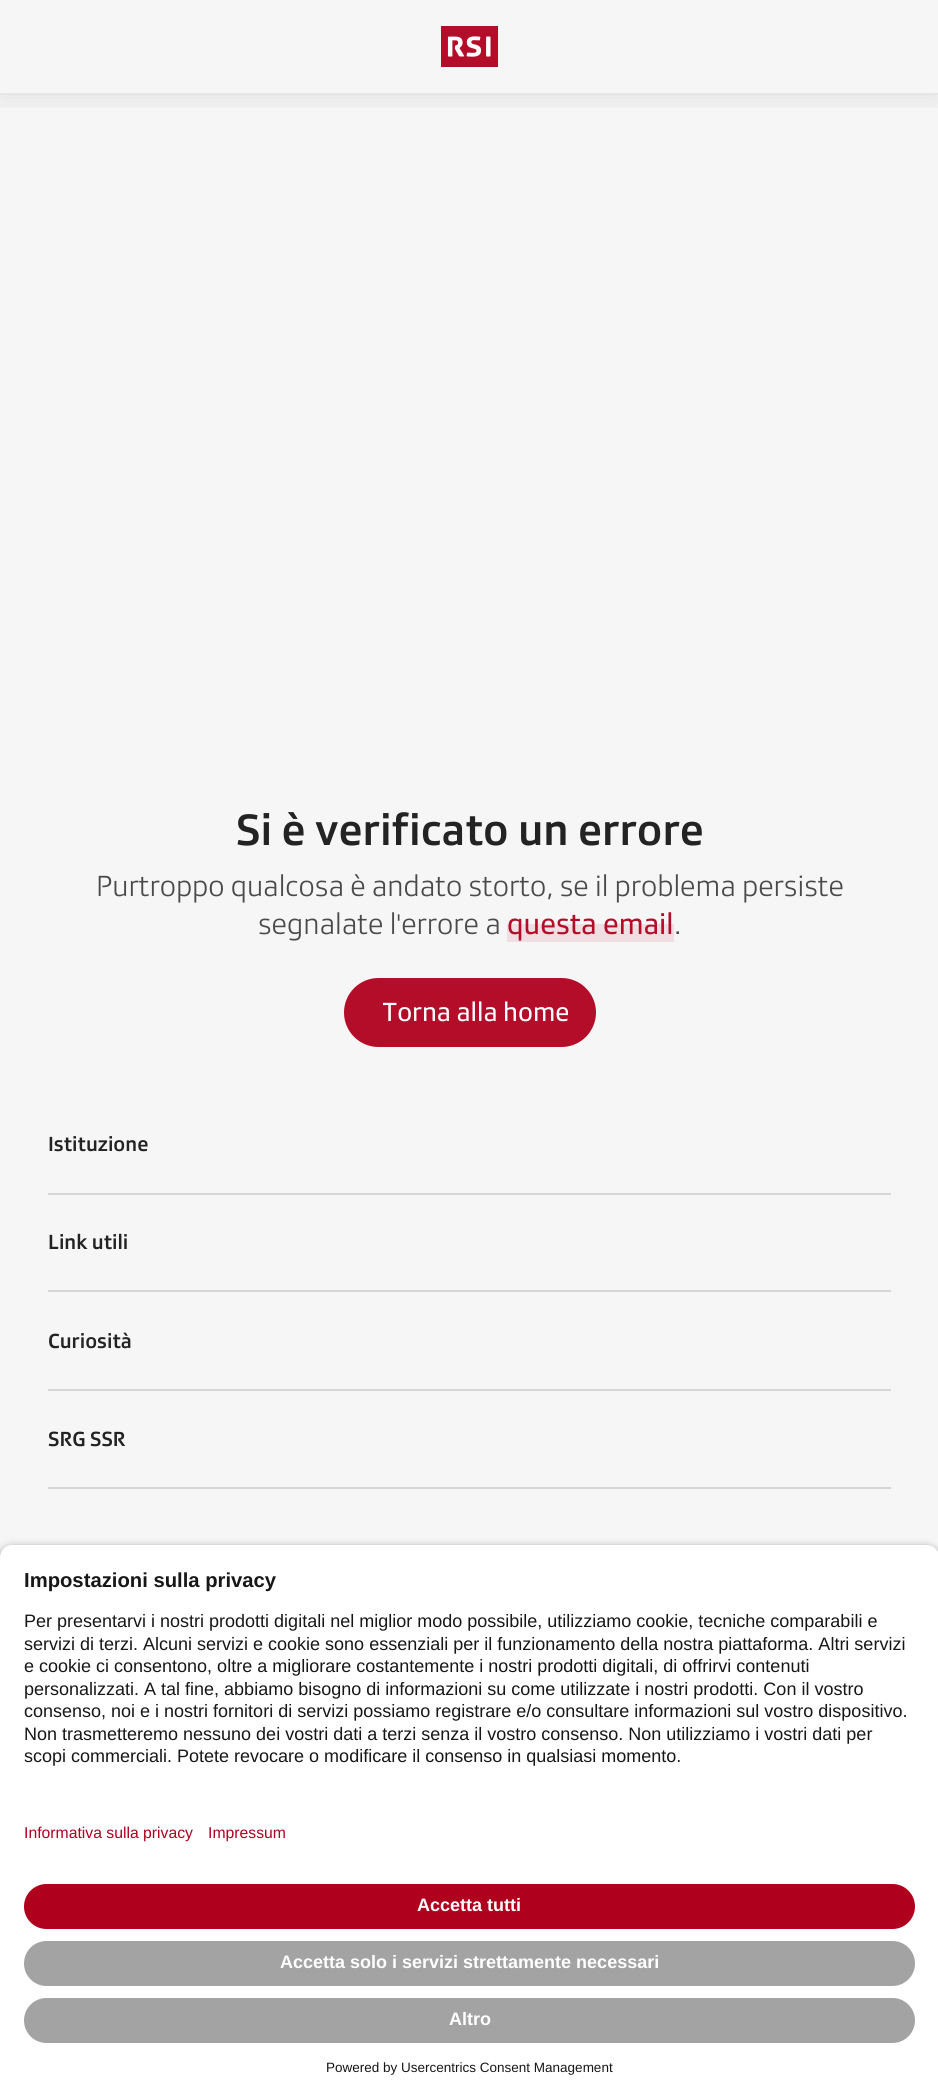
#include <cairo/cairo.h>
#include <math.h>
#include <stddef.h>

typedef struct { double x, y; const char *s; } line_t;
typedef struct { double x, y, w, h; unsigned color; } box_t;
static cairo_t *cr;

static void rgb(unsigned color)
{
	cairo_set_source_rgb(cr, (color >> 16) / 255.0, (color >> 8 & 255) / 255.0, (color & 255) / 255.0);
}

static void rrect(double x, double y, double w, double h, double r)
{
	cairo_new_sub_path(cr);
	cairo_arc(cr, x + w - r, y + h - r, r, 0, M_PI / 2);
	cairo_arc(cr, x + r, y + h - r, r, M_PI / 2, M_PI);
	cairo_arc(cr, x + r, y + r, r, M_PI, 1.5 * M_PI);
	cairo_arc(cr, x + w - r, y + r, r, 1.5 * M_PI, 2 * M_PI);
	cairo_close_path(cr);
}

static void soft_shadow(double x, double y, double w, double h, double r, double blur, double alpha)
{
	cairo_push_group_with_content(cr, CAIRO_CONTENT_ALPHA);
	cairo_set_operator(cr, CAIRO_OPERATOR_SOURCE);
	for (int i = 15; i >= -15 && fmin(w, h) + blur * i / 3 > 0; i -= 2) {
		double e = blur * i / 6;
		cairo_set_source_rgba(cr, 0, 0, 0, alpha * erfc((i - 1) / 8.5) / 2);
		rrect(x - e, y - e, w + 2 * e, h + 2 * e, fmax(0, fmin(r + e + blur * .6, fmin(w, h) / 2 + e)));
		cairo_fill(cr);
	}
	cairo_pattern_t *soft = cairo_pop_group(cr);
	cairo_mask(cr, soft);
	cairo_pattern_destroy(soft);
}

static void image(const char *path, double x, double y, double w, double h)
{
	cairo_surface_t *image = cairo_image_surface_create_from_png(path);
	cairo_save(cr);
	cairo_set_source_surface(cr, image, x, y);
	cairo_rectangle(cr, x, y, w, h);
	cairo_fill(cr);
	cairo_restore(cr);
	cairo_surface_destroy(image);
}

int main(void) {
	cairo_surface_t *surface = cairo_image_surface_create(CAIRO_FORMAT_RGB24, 938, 2099);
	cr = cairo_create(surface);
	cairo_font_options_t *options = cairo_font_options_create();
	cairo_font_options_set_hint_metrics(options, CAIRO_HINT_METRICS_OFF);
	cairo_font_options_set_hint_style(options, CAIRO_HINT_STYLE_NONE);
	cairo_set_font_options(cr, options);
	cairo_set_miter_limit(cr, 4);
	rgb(0xf6f6f6);
	cairo_paint(cr);
	cairo_save(cr);
	cairo_rectangle(cr, 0, 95, 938, 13);
	cairo_clip(cr);
	rgb(0x0d0d0d);
	soft_shadow(0, 6, 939, 95, 0, 11, 0.08);
	cairo_restore(cr);
	rgb(0xe6e6e6);
	cairo_rectangle(cr, 0, 93, 938, 2);
	cairo_fill(cr);
	image("img/1.png", 441, 26, 57, 41);
	rgb(0xefdfe2);
	cairo_rectangle(cr, 507, 924, 167, 18);
	cairo_fill(cr);
	rgb(0xb30d29);
	rrect(344, 978, 252, 69, 34.5);
	cairo_fill(cr);
	{
		static const box_t items[] = {
			{48, 1193, 843, 2, 0xd6d6d6},
			{48, 1290, 843, 2, 0xd6d6d6},
			{48, 1389, 843, 2, 0xd6d6d6},
			{48, 1487, 843, 2, 0xd6d6d6},
		};
		for (size_t i = 0; i < sizeof items / sizeof *items; i++) {
			rgb(items[i].color);
			cairo_rectangle(cr, items[i].x, items[i].y, items[i].w, items[i].h);
			cairo_fill(cr);
		}
	}
	rgb(0x000000);
	soft_shadow(0, 1550, 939, 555, 12, 5, 0.8);
	rgb(0xffffff);
	cairo_new_path(cr);
	cairo_move_to(cr, 12, 1545);
	cairo_line_to(cr, 927, 1545);
	cairo_curve_to(cr, 933.5, 1545, 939, 1550.5, 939, 1557);
	cairo_line_to(cr, 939, 1799);
	cairo_line_to(cr, 0, 1799);
	cairo_line_to(cr, 0, 1557);
	cairo_curve_to(cr, 0, 1550.5, 5.5, 1545, 12, 1545);
	cairo_close_path(cr);
	cairo_fill(cr);
	cairo_rectangle(cr, 0, 1799, 938, 300);
	cairo_fill(cr);
	rgb(0xaf001e);
	rrect(24, 1884, 891, 45, 22.5);
	cairo_fill(cr);
	rgb(0xa3a3a3);
	rrect(24, 1941, 891, 45, 22.5);
	cairo_fill(cr);
	rrect(24, 1998, 891, 45, 22.5);
	cairo_fill(cr);
	cairo_select_font_face(cr, "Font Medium", CAIRO_FONT_SLANT_NORMAL, CAIRO_FONT_WEIGHT_NORMAL);
	cairo_set_font_size(cr, 45);
	rgb(0x232323);
	cairo_move_to(cr, 236, 845);
	cairo_show_text(cr, "Si è verificato un errore");
	cairo_select_font_face(cr, "Font Light", CAIRO_FONT_SLANT_NORMAL, CAIRO_FONT_WEIGHT_NORMAL);
	cairo_set_font_size(cr, 30);
	rgb(0x4a4a4a);
	cairo_move_to(cr, 96, 896);
	cairo_show_text(cr, "Purtroppo qualcosa è andato storto, se il problema persiste");
	cairo_move_to(cr, 258, 934);
	cairo_show_text(cr, "segnalate l'errore a");
	cairo_select_font_face(cr, "Font", CAIRO_FONT_SLANT_NORMAL, CAIRO_FONT_WEIGHT_NORMAL);
	rgb(0xb30d29);
	cairo_move_to(cr, 507, 934);
	cairo_show_text(cr, "questa email");
	cairo_select_font_face(cr, "Font Light", CAIRO_FONT_SLANT_NORMAL, CAIRO_FONT_WEIGHT_NORMAL);
	rgb(0x4a4a4a);
	cairo_move_to(cr, 674, 934);
	cairo_show_text(cr, ".");
	cairo_save(cr);
	cairo_rectangle(cr, 383, 998, 186, 31);
	cairo_clip(cr);
	cairo_select_font_face(cr, "Font", CAIRO_FONT_SLANT_NORMAL, CAIRO_FONT_WEIGHT_NORMAL);
	cairo_set_font_size(cr, 27);
	rgb(0xffffff);
	cairo_move_to(cr, 382, 1021);
	cairo_show_text(cr, "Torna alla home");
	cairo_restore(cr);
	cairo_select_font_face(cr, "Font Medium", CAIRO_FONT_SLANT_NORMAL, CAIRO_FONT_WEIGHT_NORMAL);
	cairo_set_font_size(cr, 21);
	rgb(0x232323);
	{
		static const line_t items[] = {
			{48, 1151, "Istituzione"},
			{48, 1249, "Link utili"},
			{48, 1348, "Curiosità"},
			{48, 1446, "SRG SSR"},
		};
		for (size_t i = 0; i < sizeof items / sizeof *items; i++) {
			cairo_move_to(cr, items[i].x, items[i].y);
			cairo_show_text(cr, items[i].s);
		}
	}
	cairo_select_font_face(cr, "Liberation Sans", CAIRO_FONT_SLANT_NORMAL, CAIRO_FONT_WEIGHT_BOLD);
	cairo_set_font_size(cr, 20.25);
	rgb(0x171717);
	cairo_move_to(cr, 24, 1587);
	cairo_show_text(cr, "Impostazioni sulla privacy");
	cairo_select_font_face(cr, "Liberation Sans", CAIRO_FONT_SLANT_NORMAL, CAIRO_FONT_WEIGHT_NORMAL);
	cairo_set_font_size(cr, 18);
	{
		static const line_t items[] = {
			{24, 1627, "Per presentarvi i nostri prodotti digitali nel miglior modo possibile, utilizziamo cookie, tecniche comparabili e"},
			{24, 1650, "servizi di terzi. Alcuni servizi e cookie sono essenziali per il funzionamento della nostra piattaforma. Altri servizi"},
			{24, 1672, "e cookie ci consentono, oltre a migliorare costantemente i nostri prodotti digitali, di offrirvi contenuti"},
			{24, 1695, "personalizzati. A tal fine, abbiamo bisogno di informazioni su come utilizzate i nostri prodotti. Con il vostro"},
			{24, 1717, "consenso, noi e i nostri fornitori di servizi possiamo registrare e/o consultare informazioni sul vostro dispositivo."},
			{24, 1740, "Non trasmetteremo nessuno dei vostri dati a terzi senza il vostro consenso. Non utilizziamo i vostri dati per"},
			{24, 1762, "scopi commerciali. Potete revocare o modificare il consenso in qualsiasi momento."},
		};
		for (size_t i = 0; i < sizeof items / sizeof *items; i++) {
			cairo_move_to(cr, items[i].x, items[i].y);
			cairo_show_text(cr, items[i].s);
		}
	}
	cairo_set_font_size(cr, 15.75);
	rgb(0xaf001e);
	cairo_move_to(cr, 24, 1838);
	cairo_show_text(cr, "Informativa sulla privacy");
	cairo_move_to(cr, 208, 1838);
	cairo_show_text(cr, "Impressum");
	cairo_select_font_face(cr, "Liberation Sans", CAIRO_FONT_SLANT_NORMAL, CAIRO_FONT_WEIGHT_BOLD);
	cairo_set_font_size(cr, 18);
	rgb(0xffffff);
	{
		static const line_t items[] = {
			{417, 1911, "Accetta tutti"},
			{280, 1968, "Accetta solo i servizi strettamente necessari"},
			{449, 2025, "Altro"},
		};
		for (size_t i = 0; i < sizeof items / sizeof *items; i++) {
			cairo_move_to(cr, items[i].x, items[i].y);
			cairo_show_text(cr, items[i].s);
		}
	}
	cairo_select_font_face(cr, "Liberation Sans", CAIRO_FONT_SLANT_NORMAL, CAIRO_FONT_WEIGHT_NORMAL);
	cairo_set_font_size(cr, 13.5);
	rgb(0x171717);
	cairo_move_to(cr, 326, 2072);
	cairo_show_text(cr, "Powered by Usercentrics Consent Management");
	cairo_surface_write_to_png(surface, "page.png");
	cairo_font_options_destroy(options);
	cairo_destroy(cr);
	cairo_surface_destroy(surface);
	return 0;
}
